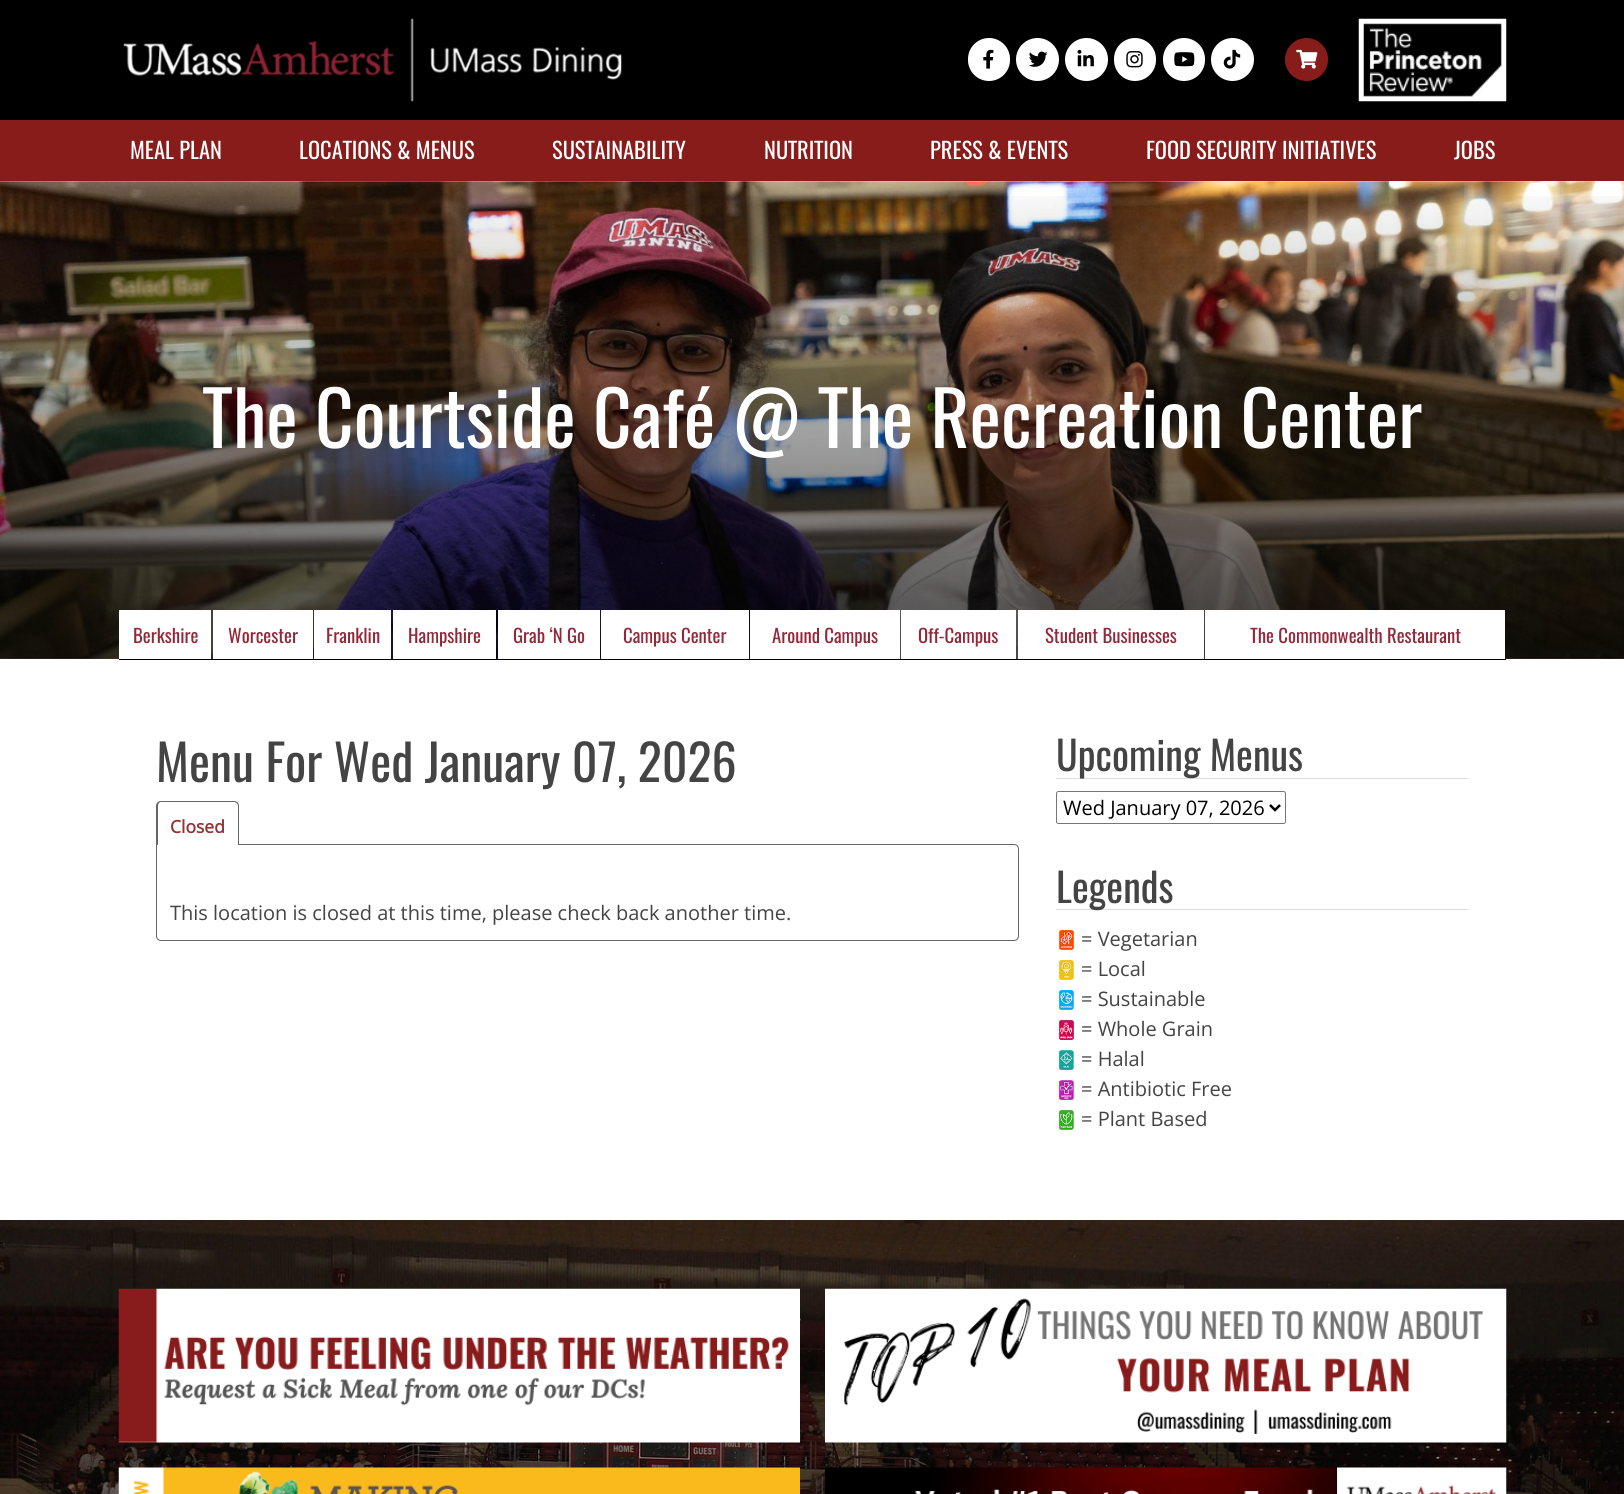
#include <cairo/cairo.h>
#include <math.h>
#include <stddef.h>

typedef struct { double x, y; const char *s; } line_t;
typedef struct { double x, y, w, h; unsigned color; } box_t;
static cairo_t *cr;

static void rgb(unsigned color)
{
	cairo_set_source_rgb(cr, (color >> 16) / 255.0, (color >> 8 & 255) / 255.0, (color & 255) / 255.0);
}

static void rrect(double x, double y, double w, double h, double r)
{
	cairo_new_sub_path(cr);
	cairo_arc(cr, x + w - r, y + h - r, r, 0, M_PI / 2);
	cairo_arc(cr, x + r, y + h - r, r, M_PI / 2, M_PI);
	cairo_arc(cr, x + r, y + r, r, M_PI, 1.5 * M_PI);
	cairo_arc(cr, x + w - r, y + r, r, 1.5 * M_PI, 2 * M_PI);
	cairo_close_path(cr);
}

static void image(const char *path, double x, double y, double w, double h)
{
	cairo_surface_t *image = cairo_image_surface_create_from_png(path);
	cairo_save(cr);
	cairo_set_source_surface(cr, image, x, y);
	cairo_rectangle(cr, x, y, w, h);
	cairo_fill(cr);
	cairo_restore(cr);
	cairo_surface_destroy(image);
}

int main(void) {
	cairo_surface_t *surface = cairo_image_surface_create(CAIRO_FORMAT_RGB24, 1624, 1494);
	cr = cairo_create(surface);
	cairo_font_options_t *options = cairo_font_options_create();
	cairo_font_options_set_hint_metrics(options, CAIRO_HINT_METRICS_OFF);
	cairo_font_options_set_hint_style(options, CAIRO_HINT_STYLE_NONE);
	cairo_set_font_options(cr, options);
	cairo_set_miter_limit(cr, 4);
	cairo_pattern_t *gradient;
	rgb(0xffffff);
	cairo_paint(cr);
	rgb(0x000000);
	cairo_rectangle(cr, 0, 0, 1624, 120);
	cairo_fill(cr);
	image("img/1.png", 123, 18, 499, 84);
	rgb(0xffffff);
	rrect(968, 38, 42, 43, 21);
	cairo_fill(cr);
	image("img/2.png", 983, 49, 11, 20);
	cairo_arc(cr, 1037.5, 59.5, 21.5, 0, 2 * M_PI);
	cairo_fill(cr);
	image("img/3.png", 1029, 51, 19, 16);
	cairo_arc(cr, 1086.5, 59.5, 21.5, 0, 2 * M_PI);
	cairo_fill(cr);
	image("img/4.png", 1077, 49, 17, 18);
	rrect(1114, 38, 42, 43, 21);
	cairo_fill(cr);
	image("img/5.png", 1126, 51, 17, 17);
	rrect(1163, 38, 42, 43, 21);
	cairo_fill(cr);
	image("img/6.png", 1174, 52, 21, 15);
	cairo_arc(cr, 1232.5, 59.5, 21.5, 0, 2 * M_PI);
	cairo_fill(cr);
	image("img/7.png", 1223, 49, 18, 20);
	rgb(0x881c1b);
	cairo_arc(cr, 1306.5, 59.5, 21.5, 0, 2 * M_PI);
	cairo_fill(cr);
	image("img/8.png", 1296, 49, 22, 20);
	image("img/9.png", 1358, 18, 149, 84);
	cairo_rectangle(cr, 0, 120, 1624, 61);
	cairo_fill(cr);
	image("img/10.png", 0, 181, 1624, 478);
	gradient = cairo_pattern_create_linear(813, 181, 813, 659);
	cairo_pattern_add_color_stop_rgba(gradient, 0, 0, 0, 0, 0);
	cairo_pattern_add_color_stop_rgba(gradient, 1, 0, 0, 0, 0.7);
	cairo_set_source(cr, gradient);
	cairo_pattern_destroy(gradient);
	cairo_rectangle(cr, 0, 196, 1624, 463);
	cairo_fill(cr);
	{
		static const box_t items[] = {
			{119, 659, 1387, 1, 0x000000},
			{119, 610, 92, 49, 0xffffff},
			{213, 610, 100, 49, 0xffffff},
			{314, 610, 77, 49, 0xffffff},
			{393, 610, 103, 49, 0xffffff},
			{498, 610, 102, 49, 0xffffff},
			{601, 610, 148, 49, 0xffffff},
			{750, 610, 150, 49, 0xffffff},
			{901, 610, 115, 49, 0xffffff},
			{1018, 610, 186, 49, 0xffffff},
			{1205, 610, 300, 49, 0xffffff},
		};
		for (size_t i = 0; i < sizeof items / sizeof *items; i++) {
			rgb(items[i].color);
			cairo_rectangle(cr, items[i].x, items[i].y, items[i].w, items[i].h);
			cairo_fill(cr);
		}
	}
	cairo_new_path(cr);
	cairo_move_to(cr, 156.5, 844.5);
	cairo_line_to(cr, 1014, 844.5);
	cairo_curve_to(cr, 1016.5, 844.5, 1018.5, 846.5, 1018.5, 849);
	cairo_line_to(cr, 1018.5, 936);
	cairo_curve_to(cr, 1018.5, 938.5, 1016.5, 940.5, 1014, 940.5);
	cairo_line_to(cr, 161, 940.5);
	cairo_curve_to(cr, 158.5, 940.5, 156.5, 938.5, 156.5, 936);
	cairo_close_path(cr);
	rgb(0x666666);
	cairo_set_line_width(cr, 1);
	cairo_stroke(cr);
	rgb(0xffffff);
	cairo_new_path(cr);
	cairo_move_to(cr, 161, 801);
	cairo_line_to(cr, 234, 801);
	cairo_curve_to(cr, 237, 801, 239, 803, 239, 806);
	cairo_line_to(cr, 239, 845);
	cairo_line_to(cr, 156, 845);
	cairo_line_to(cr, 156, 806);
	cairo_curve_to(cr, 156, 803, 158, 801, 161, 801);
	cairo_close_path(cr);
	cairo_fill(cr);
	rgb(0x666666);
	cairo_set_fill_rule(cr, CAIRO_FILL_RULE_EVEN_ODD);
	cairo_new_path(cr);
	cairo_move_to(cr, 161, 801);
	cairo_line_to(cr, 234, 801);
	cairo_curve_to(cr, 237, 801, 239, 803, 239, 806);
	cairo_line_to(cr, 239, 845);
	cairo_line_to(cr, 156, 845);
	cairo_line_to(cr, 156, 806);
	cairo_curve_to(cr, 156, 803, 158, 801, 161, 801);
	cairo_close_path(cr);
	cairo_move_to(cr, 161, 802);
	cairo_line_to(cr, 234, 802);
	cairo_curve_to(cr, 236, 802, 238, 804, 238, 806);
	cairo_line_to(cr, 238, 845);
	cairo_line_to(cr, 158, 845);
	cairo_line_to(cr, 158, 806);
	cairo_curve_to(cr, 158, 804, 159, 802, 161, 802);
	cairo_close_path(cr);
	cairo_fill(cr);
	rgb(0xe2dfdc);
	cairo_rectangle(cr, 1056, 778, 413, 1);
	cairo_fill(cr);
	rrect(1056.5, 791.5, 229, 32, 2);
	rgb(0x767676);
	cairo_stroke(cr);
	cairo_new_path(cr);
	cairo_move_to(cr, 1270, 805);
	cairo_line_to(cr, 1275, 810);
	cairo_line_to(cr, 1280, 805);
	rgb(0x000000);
	cairo_set_line_width(cr, 2.5);
	cairo_stroke(cr);
	rgb(0xe2dfdc);
	cairo_rectangle(cr, 1056, 909, 413, 1);
	cairo_fill(cr);
	image("img/11.png", 1059, 930, 15, 20);
	image("img/12.png", 1058, 960, 16, 20);
	image("img/13.png", 1058, 990, 16, 20);
	image("img/14.png", 1058, 1020, 16, 20);
	image("img/15.png", 1058, 1050, 16, 20);
	image("img/16.png", 1058, 1080, 16, 20);
	image("img/17.png", 1058, 1110, 16, 20);
	image("img/18.png", 0, 1220, 1624, 274);
	image("img/19.png", 118, 1288, 682, 155);
	image("img/20.png", 825, 1288, 682, 155);
	image("img/21.png", 118, 1467, 682, 27);
	image("img/22.png", 825, 1467, 682, 27);
	cairo_select_font_face(cr, "Oswald", CAIRO_FONT_SLANT_NORMAL, CAIRO_FONT_WEIGHT_NORMAL);
	cairo_set_font_size(cr, 22.5);
	rgb(0xffffff);
	{
		static const line_t items[] = {
			{130, 159, "MEAL PLAN"},
			{299, 159, "LOCATIONS & MENUS"},
			{552, 159, "SUSTAINABILITY"},
			{764, 159, "NUTRITION"},
			{930, 159, "PRESS & EVENTS"},
			{1146, 159, "FOOD SECURITY INITIATIVES"},
			{1454, 159, "JOBS"},
		};
		for (size_t i = 0; i < sizeof items / sizeof *items; i++) {
			cairo_move_to(cr, items[i].x, items[i].y);
			cairo_show_text(cr, items[i].s);
		}
	}
	cairo_select_font_face(cr, "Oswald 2", CAIRO_FONT_SLANT_NORMAL, CAIRO_FONT_WEIGHT_NORMAL);
	cairo_set_font_size(cr, 75);
	cairo_move_to(cr, 202, 448);
	cairo_show_text(cr, "The Courtside Café @ The Recreation Center");
	cairo_set_font_size(cr, 18.75);
	rgb(0x942739);
	{
		static const line_t items[] = {
			{133, 643, "Berkshire"},
			{228, 643, "Worcester"},
			{326, 643, "Franklin"},
			{408, 643, "Hampshire"},
			{513, 643, "Grab ‘N Go"},
			{623, 643, "Campus Center"},
			{772, 643, "Around Campus"},
			{918, 643, "Off-Campus"},
			{1045, 643, "Student Businesses"},
			{1250, 643, "The Commonwealth Restaurant"},
		};
		for (size_t i = 0; i < sizeof items / sizeof *items; i++) {
			cairo_move_to(cr, items[i].x, items[i].y);
			cairo_show_text(cr, items[i].s);
		}
	}
	cairo_set_font_size(cr, 50);
	rgb(0x444444);
	cairo_move_to(cr, 156, 782);
	cairo_show_text(cr, "Menu For Wed January 07, 2026");
	cairo_select_font_face(cr, "Open Sans", CAIRO_FONT_SLANT_NORMAL, CAIRO_FONT_WEIGHT_BOLD);
	cairo_set_font_size(cr, 17.5);
	rgb(0x933333);
	cairo_move_to(cr, 170, 833);
	cairo_show_text(cr, "Closed");
	cairo_select_font_face(cr, "Open Sans", CAIRO_FONT_SLANT_NORMAL, CAIRO_FONT_WEIGHT_NORMAL);
	cairo_set_font_size(cr, 20);
	rgb(0x444444);
	cairo_move_to(cr, 170, 920);
	cairo_show_text(cr, "This location is closed at this time, please check back another time.");
	cairo_select_font_face(cr, "Oswald 2", CAIRO_FONT_SLANT_NORMAL, CAIRO_FONT_WEIGHT_NORMAL);
	cairo_set_font_size(cr, 40);
	cairo_move_to(cr, 1056, 771);
	cairo_show_text(cr, "Upcoming Menus");
	cairo_select_font_face(cr, "Open Sans", CAIRO_FONT_SLANT_NORMAL, CAIRO_FONT_WEIGHT_NORMAL);
	cairo_set_font_size(cr, 20);
	rgb(0x000000);
	cairo_move_to(cr, 1063, 815);
	cairo_show_text(cr, "Wed January 07, 2026");
	cairo_select_font_face(cr, "Oswald 2", CAIRO_FONT_SLANT_NORMAL, CAIRO_FONT_WEIGHT_NORMAL);
	cairo_set_font_size(cr, 40);
	rgb(0x444444);
	cairo_move_to(cr, 1056, 903);
	cairo_show_text(cr, "Legends");
	cairo_select_font_face(cr, "Open Sans", CAIRO_FONT_SLANT_NORMAL, CAIRO_FONT_WEIGHT_NORMAL);
	cairo_set_font_size(cr, 20);
	{
		static const line_t items[] = {
			{1081, 946, "= Vegetarian"},
			{1081, 976, "= Local"},
			{1081, 1006, "= Sustainable"},
			{1081, 1036, "= Whole Grain"},
			{1081, 1066, "= Halal"},
			{1081, 1096, "= Antibiotic Free"},
			{1081, 1126, "= Plant Based"},
		};
		for (size_t i = 0; i < sizeof items / sizeof *items; i++) {
			cairo_move_to(cr, items[i].x, items[i].y);
			cairo_show_text(cr, items[i].s);
		}
	}
	cairo_surface_write_to_png(surface, "page.png");
	cairo_font_options_destroy(options);
	cairo_destroy(cr);
	cairo_surface_destroy(surface);
	return 0;
}
